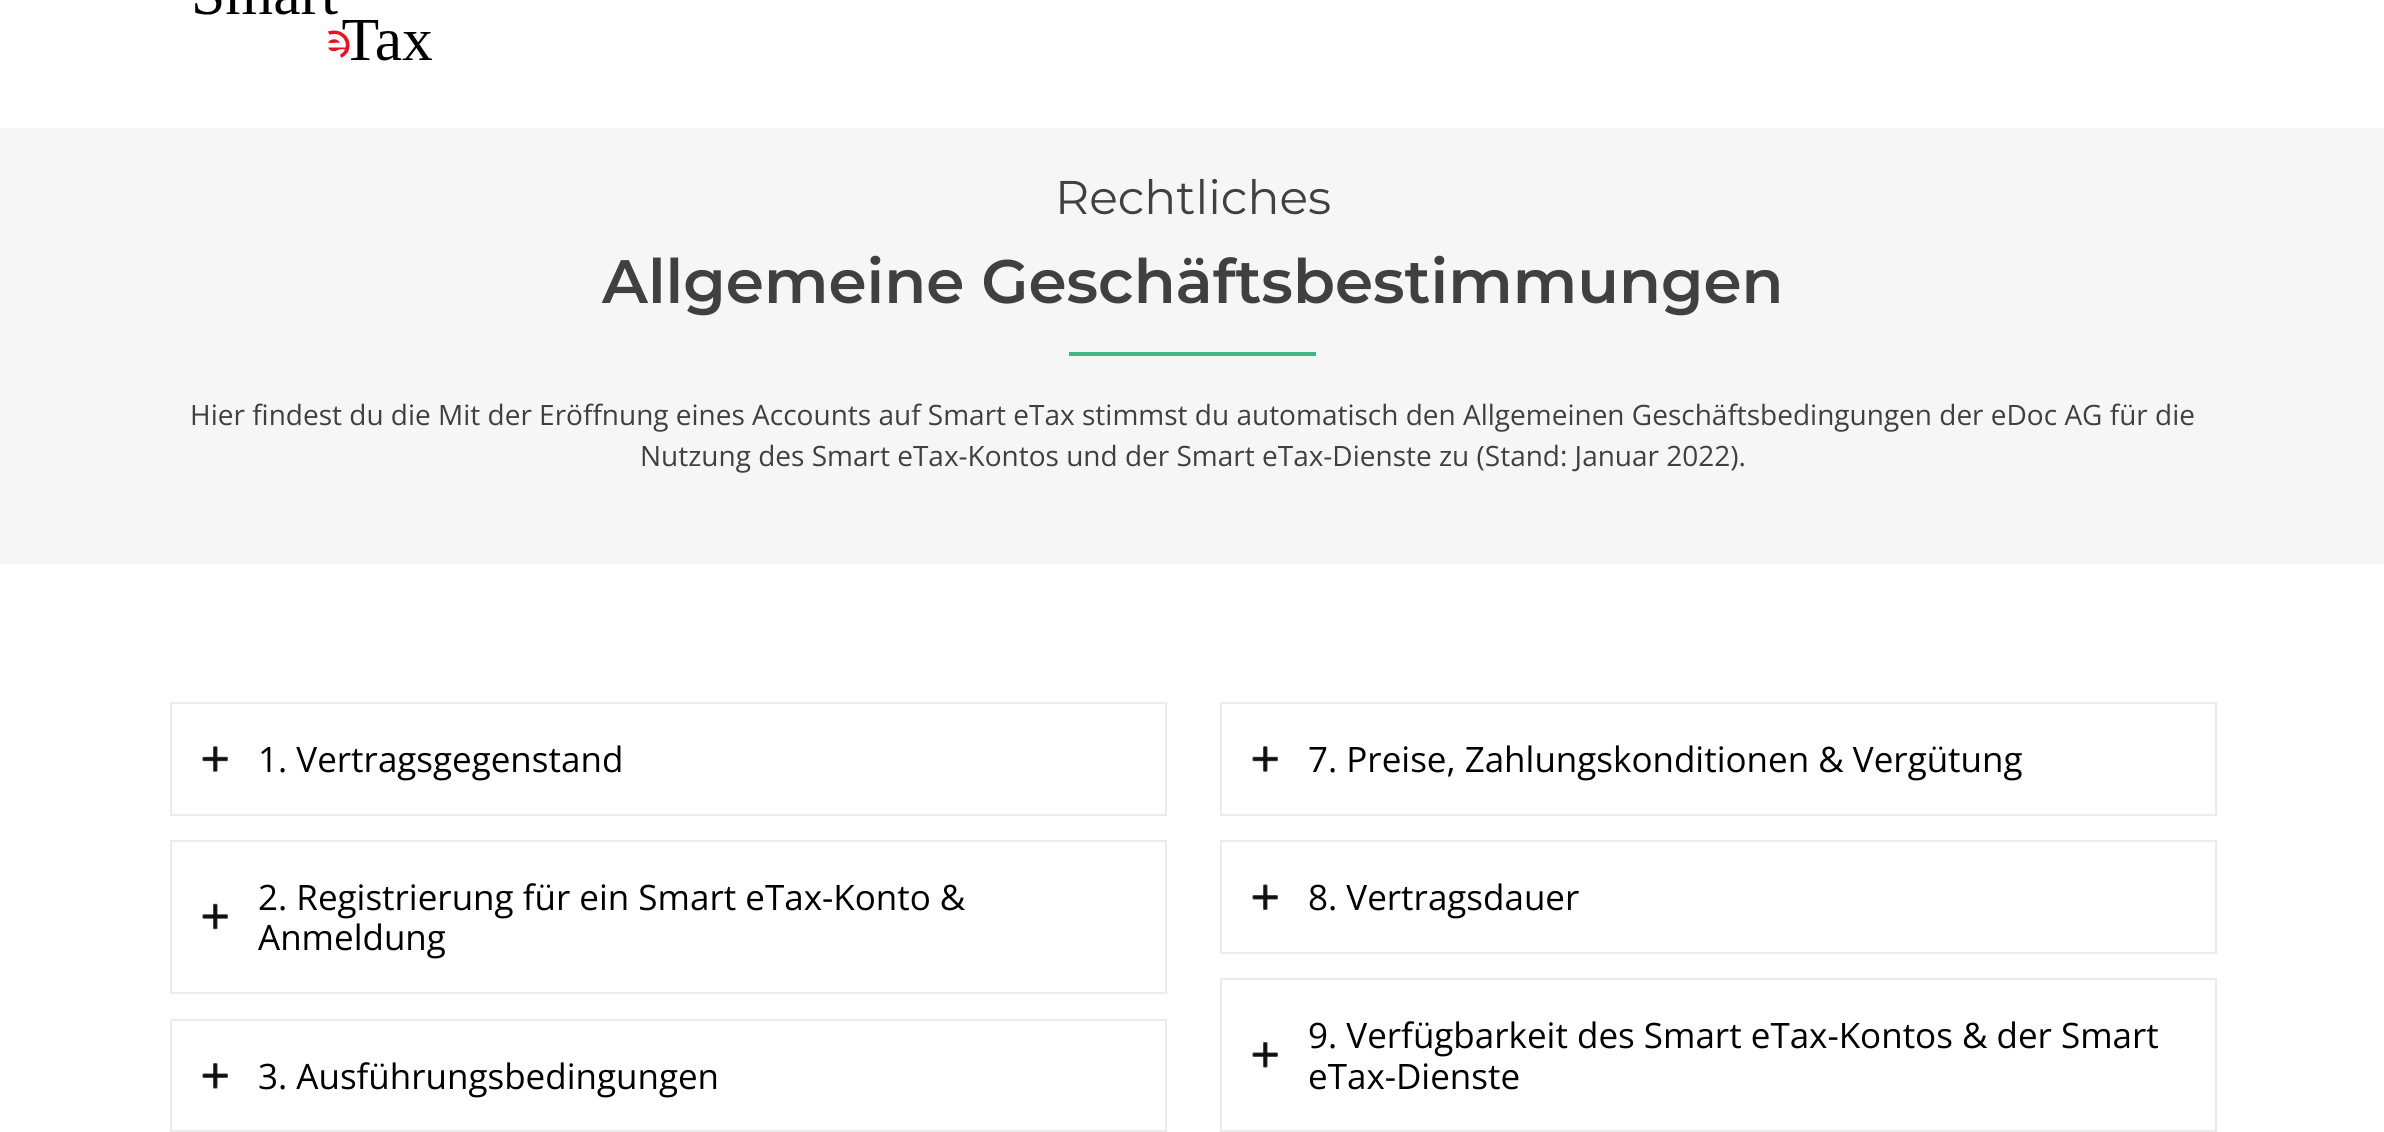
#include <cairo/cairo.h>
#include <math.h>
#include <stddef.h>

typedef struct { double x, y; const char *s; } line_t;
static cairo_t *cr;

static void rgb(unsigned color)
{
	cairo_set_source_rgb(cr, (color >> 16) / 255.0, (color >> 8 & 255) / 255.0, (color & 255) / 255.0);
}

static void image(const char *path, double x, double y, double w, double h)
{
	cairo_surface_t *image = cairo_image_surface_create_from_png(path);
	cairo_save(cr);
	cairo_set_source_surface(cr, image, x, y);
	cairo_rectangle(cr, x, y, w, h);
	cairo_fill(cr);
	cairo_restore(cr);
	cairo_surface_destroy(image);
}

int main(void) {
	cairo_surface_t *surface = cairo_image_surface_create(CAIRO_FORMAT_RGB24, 2384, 1132);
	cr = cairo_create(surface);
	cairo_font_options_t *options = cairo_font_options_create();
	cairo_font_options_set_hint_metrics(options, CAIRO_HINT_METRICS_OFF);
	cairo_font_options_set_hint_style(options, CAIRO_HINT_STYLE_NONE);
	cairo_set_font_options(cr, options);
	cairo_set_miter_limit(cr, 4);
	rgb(0xffffff);
	cairo_paint(cr);
	image("img/1.png", 195, 0, 238, 61);
	rgb(0xf6f6f6);
	cairo_rectangle(cr, 0, 128, 2384, 436);
	cairo_fill(cr);
	rgb(0x41b883);
	cairo_rectangle(cr, 1069, 352, 247, 4);
	cairo_fill(cr);
	cairo_rectangle(cr, 171, 703, 995, 112);
	rgb(0xebebeb);
	cairo_stroke(cr);
	image("img/2.png", 202, 746, 26, 26);
	image("img/3.png", 202, 746, 26, 26);
	cairo_rectangle(cr, 171, 841, 995, 152);
	cairo_stroke(cr);
	image("img/4.png", 202, 903, 26, 27);
	image("img/5.png", 202, 903, 26, 27);
	cairo_rectangle(cr, 171, 1020, 995, 111);
	cairo_stroke(cr);
	image("img/6.png", 202, 1063, 26, 26);
	image("img/7.png", 202, 1063, 26, 26);
	cairo_rectangle(cr, 1221, 703, 995, 112);
	cairo_stroke(cr);
	image("img/8.png", 1252, 746, 26, 26);
	image("img/9.png", 1252, 746, 26, 26);
	cairo_rectangle(cr, 1221, 841, 995, 112);
	cairo_stroke(cr);
	image("img/10.png", 1252, 884, 26, 26);
	image("img/11.png", 1252, 884, 26, 26);
	cairo_rectangle(cr, 1221, 979, 995, 152);
	cairo_stroke(cr);
	image("img/12.png", 1252, 1042, 26, 26);
	image("img/13.png", 1252, 1042, 26, 26);
	cairo_select_font_face(cr, "Montserrat", CAIRO_FONT_SLANT_NORMAL, CAIRO_FONT_WEIGHT_NORMAL);
	cairo_set_font_size(cr, 47.25);
	rgb(0x404040);
	cairo_move_to(cr, 1055, 214);
	cairo_show_text(cr, "Rechtliches");
	cairo_select_font_face(cr, "Montserrat SemiBold", CAIRO_FONT_SLANT_NORMAL, CAIRO_FONT_WEIGHT_NORMAL);
	cairo_set_font_size(cr, 61.25);
	cairo_move_to(cr, 602, 303);
	cairo_show_text(cr, "Allgemeine Geschäftsbestimmungen");
	cairo_select_font_face(cr, "Open Sans", CAIRO_FONT_SLANT_NORMAL, CAIRO_FONT_WEIGHT_NORMAL);
	cairo_set_font_size(cr, 28);
	cairo_move_to(cr, 190, 425);
	cairo_show_text(cr, "Hier findest du die Mit der Eröffnung eines Accounts auf Smart eTax stimmst du automatisch den Allgemeinen Geschäftsbedingungen der eDoc AG für die");
	cairo_move_to(cr, 640, 466);
	cairo_show_text(cr, "Nutzung des Smart eTax-Kontos und der Smart eTax-Dienste zu (Stand: Januar 2022).");
	cairo_set_font_size(cr, 35);
	rgb(0x000000);
	{
		static const line_t items[] = {
			{258, 772, "1. Vertragsgegenstand"},
			{258, 910, "2. Registrierung für ein Smart eTax-Konto &"},
			{258, 950, "Anmeldung"},
			{258, 1089, "3. Ausführungsbedingungen"},
			{1308, 772, "7. Preise, Zahlungskonditionen & Vergütung"},
			{1308, 910, "8. Vertragsdauer"},
			{1308, 1048, "9. Verfügbarkeit des Smart eTax-Kontos & der Smart"},
			{1308, 1089, "eTax-Dienste"},
		};
		for (size_t i = 0; i < sizeof items / sizeof *items; i++) {
			cairo_move_to(cr, items[i].x, items[i].y);
			cairo_show_text(cr, items[i].s);
		}
	}
	cairo_surface_write_to_png(surface, "page.png");
	cairo_font_options_destroy(options);
	cairo_destroy(cr);
	cairo_surface_destroy(surface);
	return 0;
}
